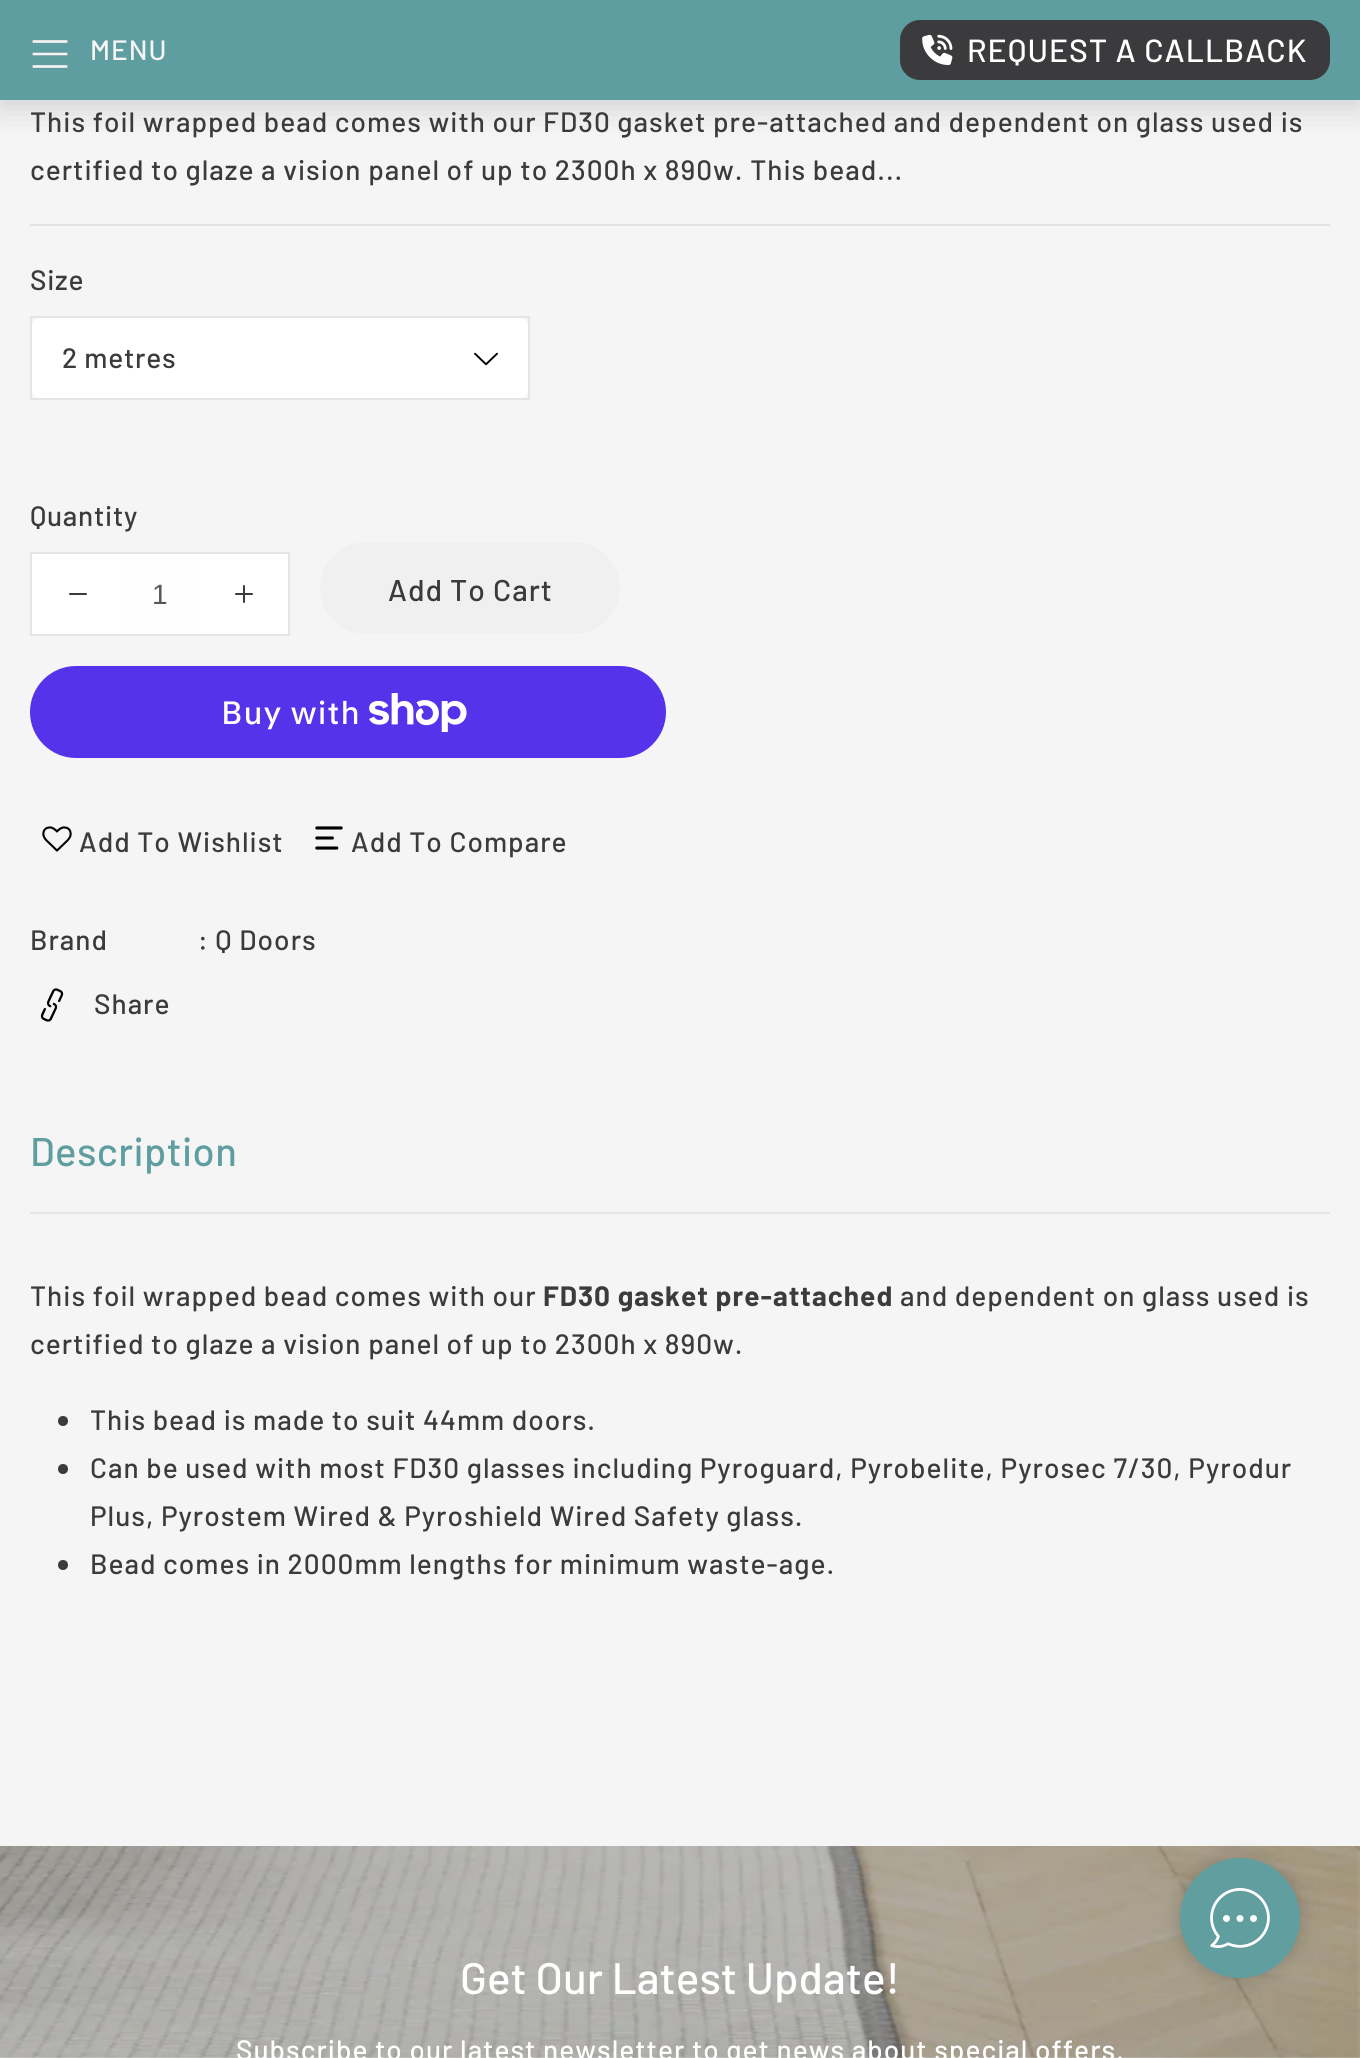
#include <cairo/cairo.h>
#include <math.h>
#include <stddef.h>

typedef struct { double x, y; const char *s; } line_t;
static cairo_t *cr;

static void rgb(unsigned color)
{
	cairo_set_source_rgb(cr, (color >> 16) / 255.0, (color >> 8 & 255) / 255.0, (color & 255) / 255.0);
}

static void tracked(double x, double y, const char *s, double letter, double word)
{
	cairo_move_to(cr, x, y);
	while (*s) {
		char ch[5] = {0};
		int n = 0;
		do ch[n++] = *s++; while ((*s & 0xC0) == 0x80);
		cairo_show_text(cr, ch);
		cairo_rel_move_to(cr, letter + word * (*ch == ' '), 0);
	}
}

static void rrect(double x, double y, double w, double h, double r)
{
	cairo_new_sub_path(cr);
	cairo_arc(cr, x + w - r, y + h - r, r, 0, M_PI / 2);
	cairo_arc(cr, x + r, y + h - r, r, M_PI / 2, M_PI);
	cairo_arc(cr, x + r, y + r, r, M_PI, 1.5 * M_PI);
	cairo_arc(cr, x + w - r, y + r, r, 1.5 * M_PI, 2 * M_PI);
	cairo_close_path(cr);
}

static void soft_shadow(double x, double y, double w, double h, double r, double blur, double alpha)
{
	cairo_push_group_with_content(cr, CAIRO_CONTENT_ALPHA);
	cairo_set_operator(cr, CAIRO_OPERATOR_SOURCE);
	for (int i = 15; i >= -15 && fmin(w, h) + blur * i / 3 > 0; i -= 2) {
		double e = blur * i / 6;
		cairo_set_source_rgba(cr, 0, 0, 0, alpha * erfc((i - 1) / 8.5) / 2);
		rrect(x - e, y - e, w + 2 * e, h + 2 * e, fmax(0, fmin(r + e + blur * .6, fmin(w, h) / 2 + e)));
		cairo_fill(cr);
	}
	cairo_pattern_t *soft = cairo_pop_group(cr);
	cairo_mask(cr, soft);
	cairo_pattern_destroy(soft);
}

static void image(const char *path, double x, double y, double w, double h)
{
	cairo_surface_t *image = cairo_image_surface_create_from_png(path);
	cairo_save(cr);
	cairo_set_source_surface(cr, image, x, y);
	cairo_rectangle(cr, x, y, w, h);
	cairo_fill(cr);
	cairo_restore(cr);
	cairo_surface_destroy(image);
}

int main(void) {
	cairo_surface_t *surface = cairo_image_surface_create(CAIRO_FORMAT_RGB24, 1360, 2058);
	cr = cairo_create(surface);
	cairo_font_options_t *options = cairo_font_options_create();
	cairo_font_options_set_hint_metrics(options, CAIRO_HINT_METRICS_OFF);
	cairo_font_options_set_hint_style(options, CAIRO_HINT_STYLE_NONE);
	cairo_set_font_options(cr, options);
	cairo_set_miter_limit(cr, 4);
	rgb(0xf5f5f5);
	cairo_paint(cr);
	rgb(0x000000);
	soft_shadow(0, 8, 1360, 100, 0, 16, 0.15);
	rgb(0x5f9ea0);
	cairo_rectangle(cr, 0, 0, 1360, 100);
	cairo_fill(cr);
	image("img/1.png", 32, 40, 36, 28);
	rgb(0x3b3b3d);
	rrect(900, 20, 430, 60, 20);
	cairo_fill(cr);
	image("img/2.png", 922, 34, 31, 32);
	rgb(0xe2e2e3);
	cairo_rectangle(cr, 30, 224, 1300, 2);
	cairo_fill(cr);
	cairo_rectangle(cr, 31, 317, 498, 82);
	rgb(0xe5e5e5);
	cairo_stroke(cr);
	rgb(0xffffff);
	rrect(32, 318, 496, 80, 8);
	cairo_fill(cr);
	image("img/3.png", 474, 352, 24, 14);
	cairo_rectangle(cr, 31, 553, 258, 82);
	rgb(0xe5e5e5);
	cairo_stroke(cr);
	rgb(0xffffff);
	cairo_rectangle(cr, 32, 554, 90, 80);
	cairo_fill(cr);
	image("img/4.png", 69, 593, 18, 2);
	rgb(0xfefefe);
	cairo_rectangle(cr, 122, 554, 76, 80);
	cairo_fill(cr);
	rgb(0xffffff);
	cairo_rectangle(cr, 198, 554, 90, 80);
	cairo_fill(cr);
	image("img/5.png", 235, 585, 18, 18);
	rgb(0xf0f0f0);
	rrect(320, 542, 300, 92, 46);
	cairo_fill(cr);
	rgb(0x5433eb);
	rrect(30, 666, 636, 92, 46);
	cairo_fill(cr);
	image("img/6.png", 369, 693, 98, 39);
	image("img/7.png", 42, 826, 30, 26);
	image("img/8.png", 315, 826, 28, 24);
	image("img/9.png", 40, 988, 24, 34);
	rgb(0xe5e5e5);
	cairo_rectangle(cr, 30, 1212, 1300, 2);
	cairo_fill(cr);
	rgb(0x3b3b3d);
	cairo_arc(cr, 63, 1421, 5, 0, 2 * M_PI);
	cairo_fill(cr);
	cairo_arc(cr, 63, 1469, 5, 0, 2 * M_PI);
	cairo_fill(cr);
	cairo_arc(cr, 63, 1565, 5, 0, 2 * M_PI);
	cairo_fill(cr);
	image("img/10.png", 0, 1846, 1360, 212);
	rgb(0x000000);
	soft_shadow(1180, 1858, 120, 120, 60, 10, 0.2);
	rgb(0x609ea0);
	cairo_new_path(cr);
	cairo_move_to(cr, 1240, 1978);
	cairo_curve_to(cr, 1207, 1978, 1180, 1951, 1180, 1918);
	cairo_curve_to(cr, 1180, 1885, 1207, 1858, 1240, 1858);
	cairo_curve_to(cr, 1273, 1858, 1300, 1885, 1300, 1918);
	cairo_curve_to(cr, 1300, 1951, 1273, 1978, 1240, 1978);
	cairo_close_path(cr);
	cairo_fill(cr);
	image("img/11.png", 1210, 1888, 60, 60);
	cairo_select_font_face(cr, "Barlow Medium", CAIRO_FONT_SLANT_NORMAL, CAIRO_FONT_WEIGHT_NORMAL);
	cairo_set_font_size(cr, 28);
	rgb(0xf5f5f5);
	tracked(90, 60, "MENU", 1, 0);
	cairo_set_font_size(cr, 32);
	rgb(0xffffff);
	tracked(967, 62, "REQUEST A CALLBACK", 1, 0);
	cairo_set_font_size(cr, 28);
	rgb(0x3b3b3d);
	tracked(30, 132, "This foil wrapped bead comes with our FD30 gasket pre-attached and dependent on glass used is", 1, 0);
	tracked(30, 180, "certified to glaze a vision panel of up to 2300h x 890w. This bead...", 1, 0);
	{
		static const line_t items[] = {
			{30, 290, "Size"},
			{62, 368, "2 metres"},
			{30, 526, "Quantity"},
		};
		for (size_t i = 0; i < sizeof items / sizeof *items; i++) {
			tracked(items[i].x, items[i].y, items[i].s, 0.75, 0);
		}
	}
	cairo_select_font_face(cr, "Liberation Sans", CAIRO_FONT_SLANT_NORMAL, CAIRO_FONT_WEIGHT_NORMAL);
	rgb(0x575759);
	cairo_move_to(cr, 152, 604);
	cairo_show_text(cr, "1");
	cairo_select_font_face(cr, "Barlow Medium", CAIRO_FONT_SLANT_NORMAL, CAIRO_FONT_WEIGHT_NORMAL);
	cairo_set_font_size(cr, 30);
	rgb(0x3b3b3d);
	tracked(388, 601, "Add To Cart", 1, 0);
	cairo_select_font_face(cr, "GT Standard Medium", CAIRO_FONT_SLANT_NORMAL, CAIRO_FONT_WEIGHT_NORMAL);
	cairo_set_font_size(cr, 32);
	rgb(0xffffff);
	tracked(221, 724, "Buy with", 1, 0);
	cairo_select_font_face(cr, "Barlow Medium", CAIRO_FONT_SLANT_NORMAL, CAIRO_FONT_WEIGHT_NORMAL);
	cairo_set_font_size(cr, 28);
	rgb(0x3b3b3d);
	{
		static const line_t items[] = {
			{79, 852, "Add To Wishlist"},
			{351, 852, "Add To Compare"},
			{30, 950, "Brand"},
			{198, 950, ": Q Doors"},
			{94, 1014, "Share"},
		};
		for (size_t i = 0; i < sizeof items / sizeof *items; i++) {
			tracked(items[i].x, items[i].y, items[i].s, 1, 0);
		}
	}
	cairo_set_font_size(cr, 40);
	rgb(0x5f9ea0);
	tracked(30, 1166, "Description", 0.4, 0);
	cairo_set_font_size(cr, 28);
	rgb(0x3b3b3d);
	tracked(30, 1306, "This foil wrapped bead comes with our", 1, 0);
	cairo_select_font_face(cr, "Barlow", CAIRO_FONT_SLANT_NORMAL, CAIRO_FONT_WEIGHT_BOLD);
	tracked(543, 1306, "FD30 gasket pre-attached", 1, 0);
	cairo_select_font_face(cr, "Barlow Medium", CAIRO_FONT_SLANT_NORMAL, CAIRO_FONT_WEIGHT_NORMAL);
	{
		static const line_t items[] = {
			{900, 1306, "and dependent on glass used is"},
			{30, 1354, "certified to glaze a vision panel of up to 2300h x 890w."},
			{90, 1430, "This bead is made to suit 44mm doors."},
			{90, 1478, "Can be used with most FD30 glasses including Pyroguard, Pyrobelite, Pyrosec 7/30, Pyrodur"},
			{90, 1526, "Plus, Pyrostem Wired & Pyroshield Wired Safety glass."},
			{90, 1574, "Bead comes in 2000mm lengths for minimum waste-age."},
		};
		for (size_t i = 0; i < sizeof items / sizeof *items; i++) {
			tracked(items[i].x, items[i].y, items[i].s, 1, 0);
		}
	}
	cairo_set_font_size(cr, 44);
	rgb(0xffffff);
	cairo_move_to(cr, 460, 1994);
	cairo_show_text(cr, "Get Our Latest Update!");
	cairo_set_font_size(cr, 28);
	tracked(236, 2060, "Subscribe to our latest newsletter to get news about special offers.", 1, 0);
	cairo_surface_write_to_png(surface, "page.png");
	cairo_font_options_destroy(options);
	cairo_destroy(cr);
	cairo_surface_destroy(surface);
	return 0;
}
